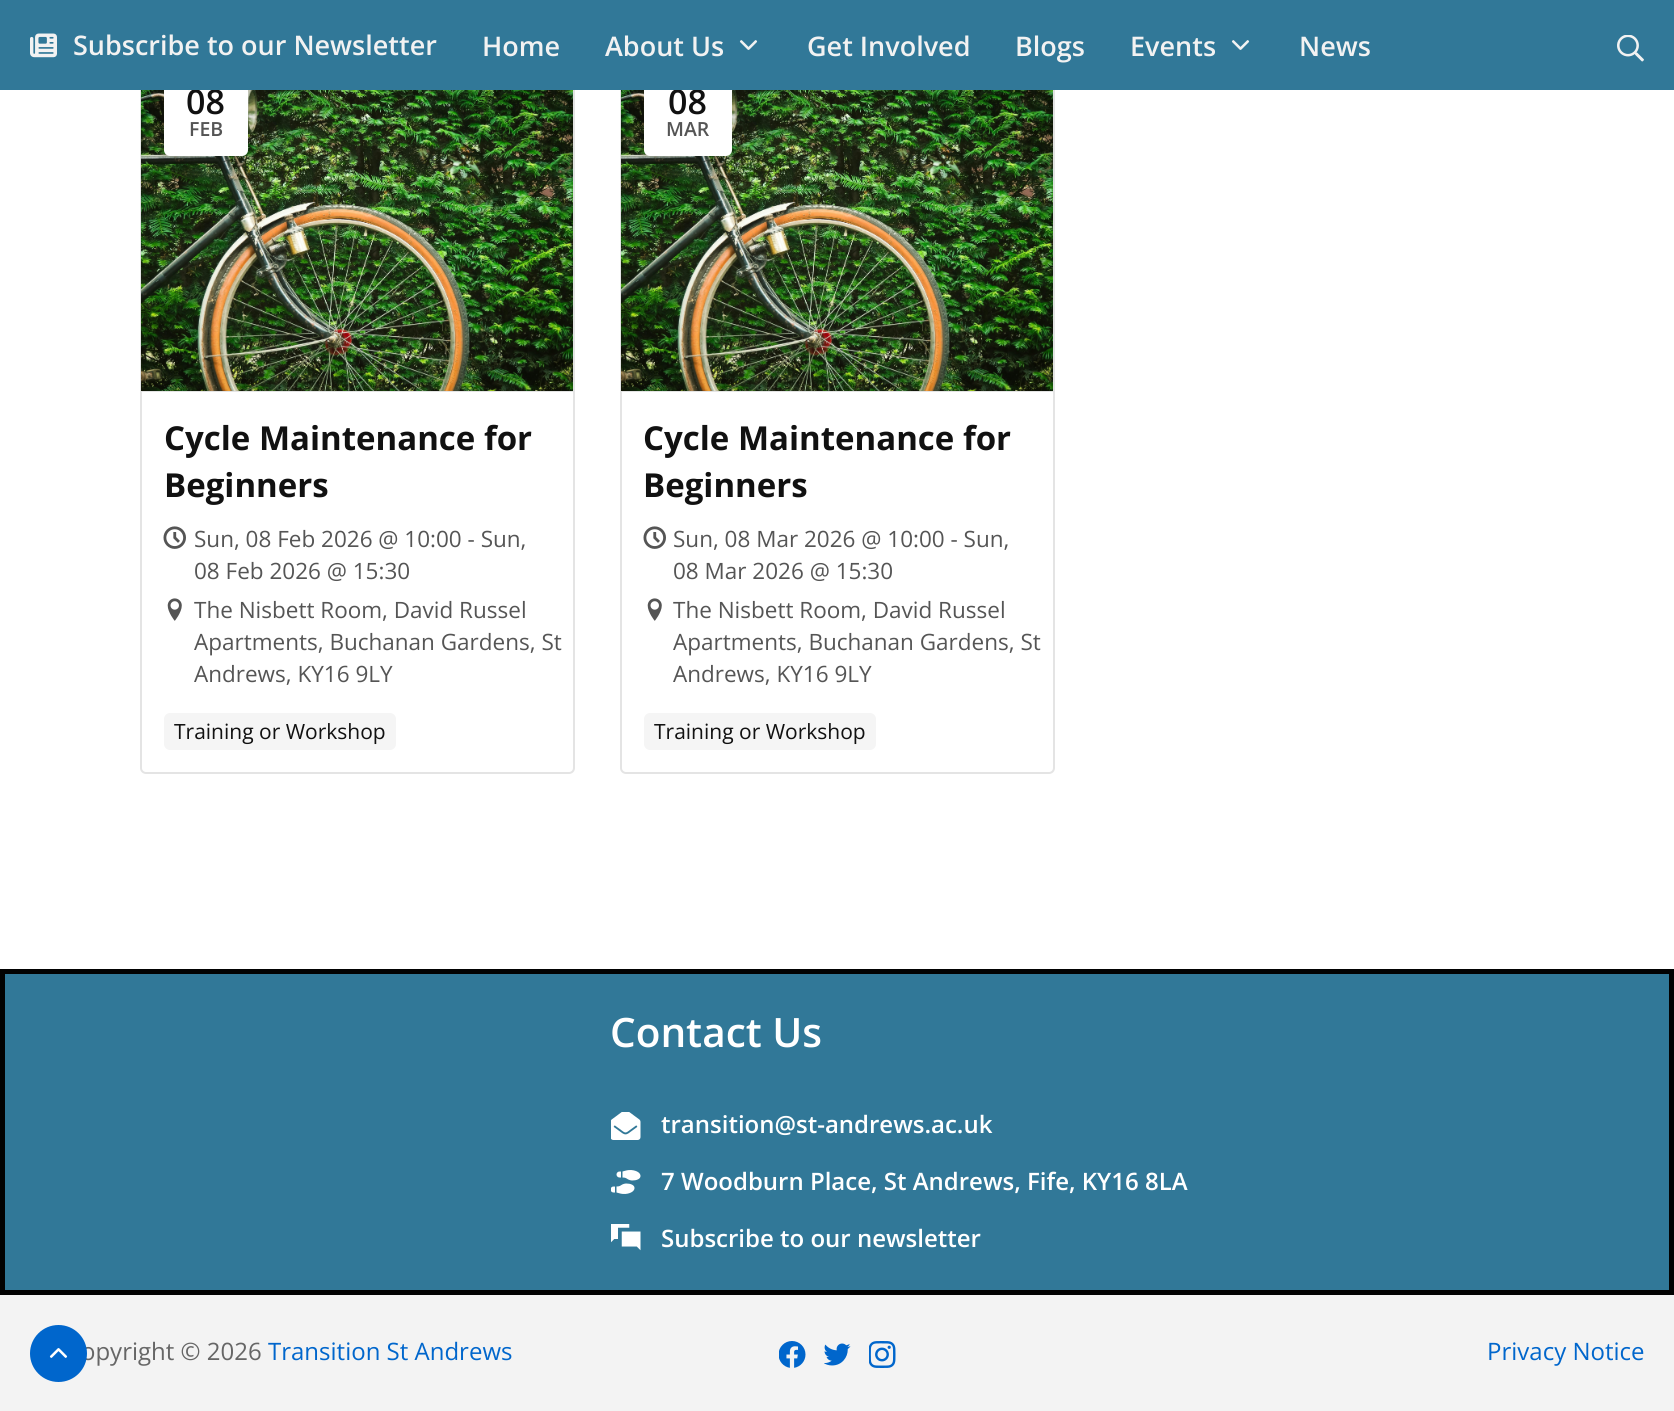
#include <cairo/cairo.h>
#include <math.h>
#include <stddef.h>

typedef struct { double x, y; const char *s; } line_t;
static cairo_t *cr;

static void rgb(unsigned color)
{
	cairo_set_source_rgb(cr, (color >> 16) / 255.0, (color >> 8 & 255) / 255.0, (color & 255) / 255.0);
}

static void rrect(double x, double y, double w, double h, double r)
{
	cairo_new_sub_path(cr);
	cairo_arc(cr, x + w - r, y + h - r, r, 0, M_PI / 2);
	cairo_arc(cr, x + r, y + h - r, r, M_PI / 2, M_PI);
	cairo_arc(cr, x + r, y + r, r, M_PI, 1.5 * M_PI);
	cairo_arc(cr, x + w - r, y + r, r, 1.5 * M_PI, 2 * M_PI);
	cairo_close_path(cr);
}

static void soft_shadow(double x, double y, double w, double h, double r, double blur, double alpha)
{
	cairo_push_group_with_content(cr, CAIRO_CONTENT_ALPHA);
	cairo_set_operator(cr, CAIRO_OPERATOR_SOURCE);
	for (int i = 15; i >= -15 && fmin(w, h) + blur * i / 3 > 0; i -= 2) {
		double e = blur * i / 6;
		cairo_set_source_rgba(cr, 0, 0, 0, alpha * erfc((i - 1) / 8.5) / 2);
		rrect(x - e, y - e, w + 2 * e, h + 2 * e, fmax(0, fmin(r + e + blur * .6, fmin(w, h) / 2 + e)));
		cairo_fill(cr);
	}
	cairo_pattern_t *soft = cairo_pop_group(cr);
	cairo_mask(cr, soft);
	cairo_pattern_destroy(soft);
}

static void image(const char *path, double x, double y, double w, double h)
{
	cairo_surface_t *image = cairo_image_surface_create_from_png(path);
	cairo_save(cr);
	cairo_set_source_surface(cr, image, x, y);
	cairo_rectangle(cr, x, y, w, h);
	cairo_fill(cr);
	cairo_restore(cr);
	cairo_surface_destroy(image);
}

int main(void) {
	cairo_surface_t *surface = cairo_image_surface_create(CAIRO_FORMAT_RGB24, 1674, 1411);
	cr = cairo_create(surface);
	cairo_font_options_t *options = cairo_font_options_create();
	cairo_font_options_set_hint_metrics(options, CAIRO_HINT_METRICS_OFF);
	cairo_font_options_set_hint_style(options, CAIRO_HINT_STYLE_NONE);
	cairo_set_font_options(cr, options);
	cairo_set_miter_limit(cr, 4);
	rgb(0xffffff);
	cairo_paint(cr);
	rrect(141, 46, 433, 727, 5);
	rgb(0xe4e4e4);
	cairo_stroke(cr);
	cairo_rectangle(cr, 141, 391, 432, 1);
	cairo_fill(cr);
	image("img/5.png", 141, 90, 432, 301);
	rgb(0x000000);
	soft_shadow(171, 74, 84, 87, 6, 11, 0.2);
	rgb(0xffffff);
	rrect(164, 69, 84, 87, 6);
	cairo_fill(cr);
	image("img/6.png", 163, 526, 23, 23);
	image("img/7.png", 167, 598, 15, 23);
	rgb(0xf5f5f5);
	rrect(164, 713, 232, 37, 6);
	cairo_fill(cr);
	rrect(621, 46, 433, 727, 5);
	rgb(0xe4e4e4);
	cairo_stroke(cr);
	cairo_rectangle(cr, 621, 391, 432, 1);
	cairo_fill(cr);
	image("img/5.png", 621, 90, 432, 301);
	rgb(0x000000);
	soft_shadow(651, 74, 89, 87, 6, 11, 0.2);
	rgb(0xffffff);
	rrect(644, 69, 88, 87, 6);
	cairo_fill(cr);
	image("img/6.png", 643, 526, 23, 23);
	image("img/7.png", 647, 598, 15, 23);
	rgb(0xf5f5f5);
	rrect(644, 713, 232, 37, 6);
	cairo_fill(cr);
	rgb(0x317898);
	cairo_rectangle(cr, 2.5, 971.5, 1669, 321);
	cairo_fill_preserve(cr);
	rgb(0x020202);
	cairo_set_line_width(cr, 5);
	cairo_stroke(cr);
	image("img/8.png", 611, 1112, 30, 28);
	image("img/9.png", 611, 1170, 30, 24);
	image("img/10.png", 611, 1224, 30, 27);
	rgb(0xf3f3f3);
	cairo_rectangle(cr, 0, 1295, 1674, 116);
	cairo_fill(cr);
	image("img/11.png", 779, 1341, 27, 27);
	image("img/12.png", 824, 1343, 27, 23);
	image("img/13.png", 869, 1341, 27, 27);
	cairo_select_font_face(cr, "Open Sans SemiBold", CAIRO_FONT_SLANT_NORMAL, CAIRO_FONT_WEIGHT_NORMAL);
	cairo_set_font_size(cr, 34);
	rgb(0x111111);
	cairo_move_to(cr, 186, 114);
	cairo_show_text(cr, "08");
	cairo_set_font_size(cr, 19.5);
	rgb(0x555555);
	cairo_move_to(cr, 189, 136);
	cairo_show_text(cr, "FEB");
	cairo_select_font_face(cr, "Open Sans", CAIRO_FONT_SLANT_NORMAL, CAIRO_FONT_WEIGHT_BOLD);
	cairo_set_font_size(cr, 33);
	rgb(0x111111);
	cairo_move_to(cr, 164, 450);
	cairo_show_text(cr, "Cycle Maintenance for");
	cairo_move_to(cr, 164, 497);
	cairo_show_text(cr, "Beginners");
	cairo_select_font_face(cr, "Open Sans", CAIRO_FONT_SLANT_NORMAL, CAIRO_FONT_WEIGHT_NORMAL);
	cairo_set_font_size(cr, 22.5);
	rgb(0x555555);
	{
		static const line_t items[] = {
			{194, 547, "Sun, 08 Feb 2026 @ 10:00 - Sun,"},
			{194, 579, "08 Feb 2026 @ 15:30"},
			{194, 618, "The Nisbett Room, David Russel"},
			{194, 650, "Apartments, Buchanan Gardens, St"},
			{194, 682, "Andrews, KY16 9LY"},
		};
		for (size_t i = 0; i < sizeof items / sizeof *items; i++) {
			cairo_move_to(cr, items[i].x, items[i].y);
			cairo_show_text(cr, items[i].s);
		}
	}
	cairo_set_font_size(cr, 21);
	rgb(0x111111);
	cairo_move_to(cr, 174, 739);
	cairo_show_text(cr, "Training or Workshop");
	cairo_select_font_face(cr, "Open Sans SemiBold", CAIRO_FONT_SLANT_NORMAL, CAIRO_FONT_WEIGHT_NORMAL);
	cairo_set_font_size(cr, 34);
	cairo_move_to(cr, 668, 114);
	cairo_show_text(cr, "08");
	rgb(0x317898);
	cairo_rectangle(cr, 0, 0, 1674, 90);
	cairo_fill(cr);
	cairo_set_font_size(cr, 27);
	rgb(0xf2f2f2);
	cairo_move_to(cr, 1299, 56);
	cairo_show_text(cr, "News");
	image("img/3.png", 1231, 40, 19, 10);
	{
		static const line_t items[] = {
			{1130, 56, "Events"},
			{1015, 56, "Blogs"},
			{807, 56, "Get Involved"},
		};
		for (size_t i = 0; i < sizeof items / sizeof *items; i++) {
			cairo_move_to(cr, items[i].x, items[i].y);
			cairo_show_text(cr, items[i].s);
		}
	}
	image("img/3.png", 739, 40, 19, 10);
	cairo_move_to(cr, 605, 56);
	cairo_show_text(cr, "About Us");
	cairo_move_to(cr, 482, 56);
	cairo_show_text(cr, "Home");
	image("img/4.png", 1617, 35, 27, 27);
	cairo_move_to(cr, 73, 55);
	cairo_show_text(cr, "Subscribe to our Newsletter");
	image("img/2.png", 30, 33, 27, 25);
	cairo_set_font_size(cr, 19.5);
	rgb(0x555555);
	cairo_move_to(cr, 666, 136);
	cairo_show_text(cr, "MAR");
	cairo_select_font_face(cr, "Open Sans", CAIRO_FONT_SLANT_NORMAL, CAIRO_FONT_WEIGHT_BOLD);
	cairo_set_font_size(cr, 33);
	rgb(0x111111);
	cairo_move_to(cr, 643, 450);
	cairo_show_text(cr, "Cycle Maintenance for");
	cairo_move_to(cr, 643, 497);
	cairo_show_text(cr, "Beginners");
	cairo_select_font_face(cr, "Open Sans", CAIRO_FONT_SLANT_NORMAL, CAIRO_FONT_WEIGHT_NORMAL);
	cairo_set_font_size(cr, 22.5);
	rgb(0x555555);
	{
		static const line_t items[] = {
			{673, 547, "Sun, 08 Mar 2026 @ 10:00 - Sun,"},
			{673, 579, "08 Mar 2026 @ 15:30"},
			{673, 618, "The Nisbett Room, David Russel"},
			{673, 650, "Apartments, Buchanan Gardens, St"},
			{673, 682, "Andrews, KY16 9LY"},
		};
		for (size_t i = 0; i < sizeof items / sizeof *items; i++) {
			cairo_move_to(cr, items[i].x, items[i].y);
			cairo_show_text(cr, items[i].s);
		}
	}
	cairo_set_font_size(cr, 21);
	rgb(0x111111);
	cairo_move_to(cr, 654, 739);
	cairo_show_text(cr, "Training or Workshop");
	cairo_select_font_face(cr, "Open Sans SemiBold", CAIRO_FONT_SLANT_NORMAL, CAIRO_FONT_WEIGHT_NORMAL);
	cairo_set_font_size(cr, 40.5);
	rgb(0xffffff);
	cairo_move_to(cr, 610, 1047);
	cairo_show_text(cr, "Contact Us");
	cairo_set_font_size(cr, 24);
	{
		static const line_t items[] = {
			{661, 1133, "transition@st-andrews.ac.uk"},
			{661, 1190, "7 Woodburn Place, St Andrews, Fife, KY16 8LA"},
			{661, 1247, "Subscribe to our newsletter"},
		};
		for (size_t i = 0; i < sizeof items / sizeof *items; i++) {
			cairo_move_to(cr, items[i].x, items[i].y);
			cairo_show_text(cr, items[i].s);
		}
	}
	cairo_select_font_face(cr, "Open Sans", CAIRO_FONT_SLANT_NORMAL, CAIRO_FONT_WEIGHT_NORMAL);
	rgb(0x666666);
	cairo_move_to(cr, 81, 1360);
	cairo_show_text(cr, "opyright © 2026");
	rgb(0x0066cc);
	cairo_new_path(cr);
	cairo_arc(cr, 58.5, 1353.5, 28.5, 0, 2 * M_PI);
	cairo_fill(cr);
	image("img/1.png", 49, 1348, 19, 10);
	cairo_move_to(cr, 268, 1360);
	cairo_show_text(cr, "Transition St Andrews");
	cairo_move_to(cr, 1487, 1360);
	cairo_show_text(cr, "Privacy Notice");
	cairo_surface_write_to_png(surface, "page.png");
	cairo_font_options_destroy(options);
	cairo_destroy(cr);
	cairo_surface_destroy(surface);
	return 0;
}
